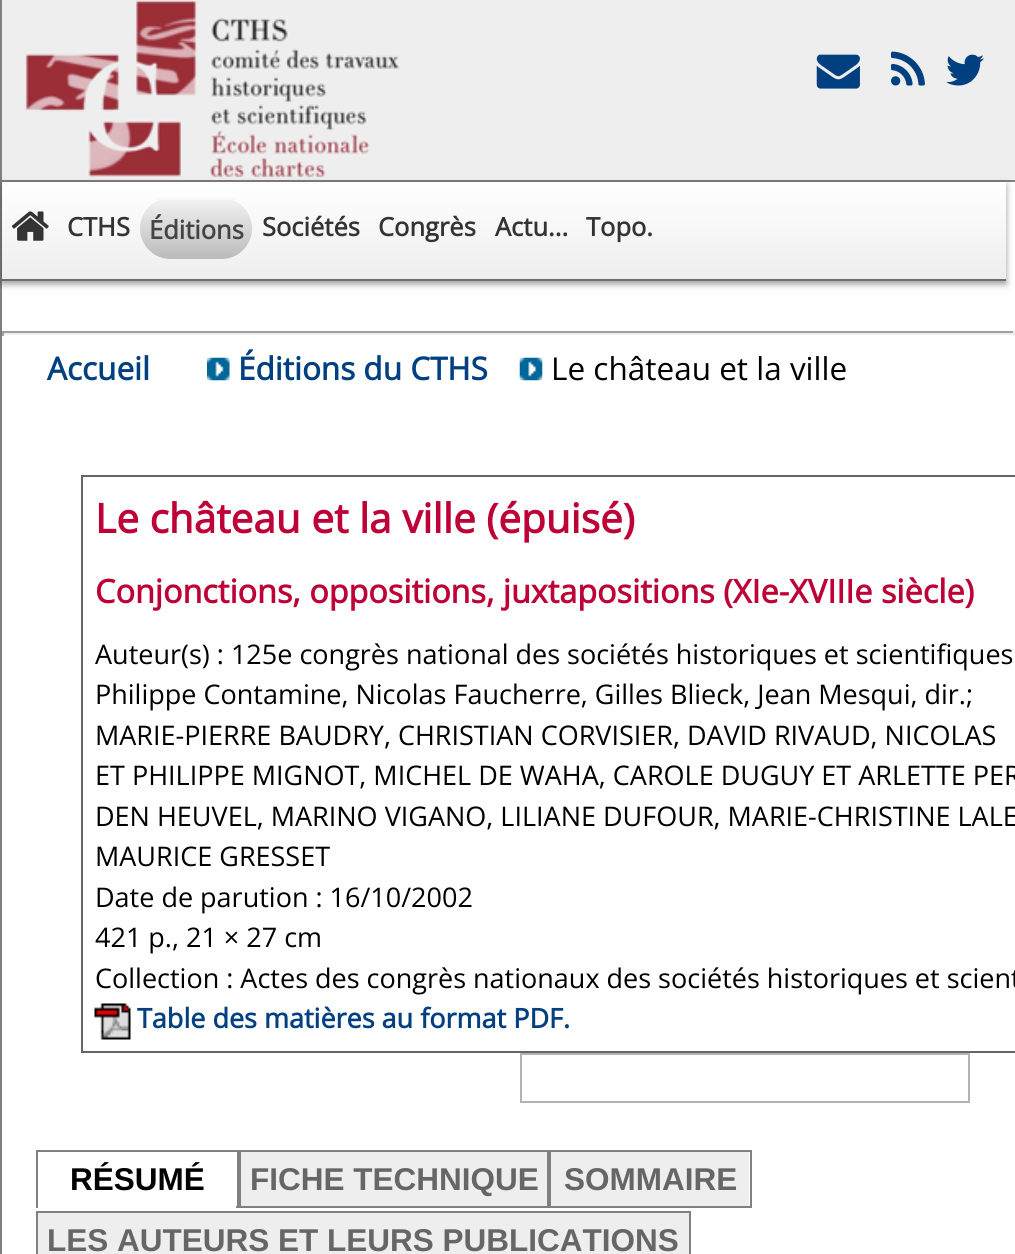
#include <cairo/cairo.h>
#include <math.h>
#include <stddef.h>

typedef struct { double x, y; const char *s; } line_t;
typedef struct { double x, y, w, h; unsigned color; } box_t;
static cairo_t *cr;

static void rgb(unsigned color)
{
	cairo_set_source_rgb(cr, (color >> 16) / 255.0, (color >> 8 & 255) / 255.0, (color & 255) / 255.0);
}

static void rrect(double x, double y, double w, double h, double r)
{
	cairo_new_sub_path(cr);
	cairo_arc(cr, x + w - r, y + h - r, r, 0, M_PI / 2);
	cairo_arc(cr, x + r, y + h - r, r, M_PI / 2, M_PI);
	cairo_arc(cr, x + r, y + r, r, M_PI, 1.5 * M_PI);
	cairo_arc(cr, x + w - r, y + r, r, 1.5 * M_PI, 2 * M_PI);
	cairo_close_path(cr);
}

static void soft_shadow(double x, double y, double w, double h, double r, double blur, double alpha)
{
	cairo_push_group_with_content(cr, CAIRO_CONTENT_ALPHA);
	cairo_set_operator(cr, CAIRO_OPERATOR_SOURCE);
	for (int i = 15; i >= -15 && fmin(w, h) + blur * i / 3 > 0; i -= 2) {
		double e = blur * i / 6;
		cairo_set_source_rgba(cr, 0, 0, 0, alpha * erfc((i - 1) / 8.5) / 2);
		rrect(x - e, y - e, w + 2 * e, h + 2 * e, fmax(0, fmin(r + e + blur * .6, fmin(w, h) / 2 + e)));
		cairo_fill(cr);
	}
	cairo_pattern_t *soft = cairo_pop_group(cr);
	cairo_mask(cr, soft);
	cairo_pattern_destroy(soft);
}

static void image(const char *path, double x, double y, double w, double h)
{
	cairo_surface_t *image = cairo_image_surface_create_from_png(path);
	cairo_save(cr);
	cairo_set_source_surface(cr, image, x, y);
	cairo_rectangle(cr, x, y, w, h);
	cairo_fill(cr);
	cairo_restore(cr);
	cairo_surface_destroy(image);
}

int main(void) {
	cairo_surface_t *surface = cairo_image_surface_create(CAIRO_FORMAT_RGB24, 1015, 1254);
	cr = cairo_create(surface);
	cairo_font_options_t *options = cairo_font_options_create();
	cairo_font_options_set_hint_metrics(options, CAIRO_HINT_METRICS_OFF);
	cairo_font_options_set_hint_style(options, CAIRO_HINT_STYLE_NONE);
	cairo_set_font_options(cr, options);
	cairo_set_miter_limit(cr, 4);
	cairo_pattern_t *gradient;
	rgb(0xffffff);
	cairo_paint(cr);
	{
		static const box_t items[] = {
			{0, 0, 2, 1254, 0x7f7f7f},
			{2, 0, 1013, 180, 0xeeeeee},
			{2, 180, 1013, 2, 0x7f7f7f},
		};
		for (size_t i = 0; i < sizeof items / sizeof *items; i++) {
			rgb(items[i].color);
			cairo_rectangle(cr, items[i].x, items[i].y, items[i].w, items[i].h);
			cairo_fill(cr);
		}
	}
	image("img/1.png", 25, 0, 375, 178);
	image("img/2.png", 816, 54, 44, 35);
	image("img/3.png", 891, 51, 34, 35);
	image("img/4.png", 946, 54, 38, 32);
	rgb(0x000000);
	soft_shadow(2, 185, 1004, 99, 0, 3.5, 0.4);
	gradient = cairo_pattern_create_linear(2.2, 182, 2.2, 279);
	cairo_pattern_add_color_stop_rgba(gradient, 0, 1, 1, 1, 1);
	cairo_pattern_add_color_stop_rgba(gradient, 1, 0.933, 0.933, 0.933, 1);
	cairo_set_source(cr, gradient);
	cairo_pattern_destroy(gradient);
	cairo_rectangle(cr, 2, 182, 1004, 97);
	cairo_fill(cr);
	rgb(0x6d6d6d);
	cairo_rectangle(cr, 2, 279, 1004, 2);
	cairo_fill(cr);
	image("img/5.png", 11, 211, 38, 30);
	cairo_save(cr);
	rrect(140, 198, 112, 61, 30.5);
	cairo_clip(cr);
	gradient = cairo_pattern_create_linear(140, 200, 140, 259);
	cairo_pattern_add_color_stop_rgba(gradient, 0, 0.945, 0.945, 0.945, 1);
	cairo_pattern_add_color_stop_rgba(gradient, 1, 0.733, 0.733, 0.733, 1);
	cairo_set_source(cr, gradient);
	cairo_pattern_destroy(gradient);
	cairo_new_path(cr);
	cairo_move_to(cr, 140, 200);
	cairo_line_to(cr, 252, 200);
	cairo_line_to(cr, 252, 228.5);
	cairo_curve_to(cr, 252, 245.5, 238.5, 259, 221.5, 259);
	cairo_line_to(cr, 170.5, 259);
	cairo_curve_to(cr, 153.5, 259, 140, 245.5, 140, 228.5);
	cairo_close_path(cr);
	cairo_fill(cr);
	cairo_restore(cr);
	{
		static const box_t items[] = {
			{155, 198, 81, 2, 0xf8f8f8},
			{2, 331, 1013, 2, 0x9f9f9f},
			{1013, 331, 2, 5, 0xeeeeee},
			{2, 333, 1013, 2, 0xeeeeee},
			{2, 331, 2, 5, 0x9f9f9f},
		};
		for (size_t i = 0; i < sizeof items / sizeof *items; i++) {
			rgb(items[i].color);
			cairo_rectangle(cr, items[i].x, items[i].y, items[i].w, items[i].h);
			cairo_fill(cr);
		}
	}
	image("img/6.png", 207, 357, 23, 24);
	image("img/7.png", 519, 357, 24, 24);
	cairo_rectangle(cr, 82, 476, 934, 576);
	rgb(0x666666);
	cairo_stroke(cr);
	image("img/8.png", 94, 1003, 37, 37);
	cairo_rectangle(cr, 521, 1054, 448, 48);
	rgb(0xb3b3b3);
	cairo_stroke(cr);
	cairo_rectangle(cr, 37, 1151, 201, 56);
	rgb(0x808080);
	cairo_stroke(cr);
	rgb(0xffffff);
	cairo_rectangle(cr, 38, 1206, 198, 2);
	cairo_fill(cr);
	cairo_rectangle(cr, 240, 1151, 308, 56);
	rgb(0x808080);
	cairo_stroke(cr);
	rgb(0xeeeeee);
	cairo_rectangle(cr, 241, 1152, 306, 54);
	cairo_fill(cr);
	cairo_rectangle(cr, 550, 1151, 201, 56);
	rgb(0x808080);
	cairo_stroke(cr);
	rgb(0xeeeeee);
	cairo_rectangle(cr, 551, 1152, 198, 54);
	cairo_fill(cr);
	cairo_rectangle(cr, 37, 1212, 653, 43);
	rgb(0x808080);
	cairo_stroke(cr);
	rgb(0xeeeeee);
	cairo_rectangle(cr, 38, 1213, 651, 41);
	cairo_fill(cr);
	cairo_select_font_face(cr, "Open Sans", CAIRO_FONT_SLANT_NORMAL, CAIRO_FONT_WEIGHT_BOLD);
	cairo_set_font_size(cr, 25.5);
	rgb(0x333333);
	cairo_move_to(cr, 67, 236);
	cairo_show_text(cr, "CTHS");
	rgb(0x444444);
	cairo_move_to(cr, 149, 239);
	cairo_show_text(cr, "Éditions");
	rgb(0x333333);
	{
		static const line_t items[] = {
			{262, 236, "Sociétés"},
			{378, 236, "Congrès"},
			{495, 236, "Actu..."},
			{586, 236, "Topo."},
		};
		for (size_t i = 0; i < sizeof items / sizeof *items; i++) {
			cairo_move_to(cr, items[i].x, items[i].y);
			cairo_show_text(cr, items[i].s);
		}
	}
	cairo_set_font_size(cr, 31.5);
	rgb(0x004080);
	cairo_move_to(cr, 47, 380);
	cairo_show_text(cr, "Accueil");
	cairo_move_to(cr, 238, 380);
	cairo_show_text(cr, "Éditions du CTHS");
	cairo_select_font_face(cr, "Open Sans", CAIRO_FONT_SLANT_NORMAL, CAIRO_FONT_WEIGHT_NORMAL);
	rgb(0x000000);
	cairo_move_to(cr, 551, 380);
	cairo_show_text(cr, "Le château et la ville");
	cairo_select_font_face(cr, "Open Sans", CAIRO_FONT_SLANT_NORMAL, CAIRO_FONT_WEIGHT_BOLD);
	cairo_set_font_size(cr, 40.5);
	rgb(0xbd0036);
	cairo_move_to(cr, 95, 533);
	cairo_show_text(cr, "Le château et la ville (épuisé)");
	cairo_set_font_size(cr, 32.4);
	cairo_move_to(cr, 95, 603);
	cairo_show_text(cr, "Conjonctions, oppositions, juxtapositions (XIe-XVIIIe siècle)");
	cairo_select_font_face(cr, "Open Sans", CAIRO_FONT_SLANT_NORMAL, CAIRO_FONT_WEIGHT_NORMAL);
	cairo_set_font_size(cr, 27);
	rgb(0x000000);
	{
		static const line_t items[] = {
			{95, 664, "Auteur(s) : 125e congrès national des sociétés historiques et scientifiques"},
			{95, 704, "Philippe Contamine, Nicolas Faucherre, Gilles Blieck, Jean Mesqui, dir.;"},
			{95, 745, "MARIE-PIERRE BAUDRY, CHRISTIAN CORVISIER, DAVID RIVAUD, NICOLAS"},
			{95, 785, "ET PHILIPPE MIGNOT, MICHEL DE WAHA, CAROLE DUGUY ET ARLETTE PER"},
			{95, 826, "DEN HEUVEL, MARINO VIGANO, LILIANE DUFOUR, MARIE-CHRISTINE LALE"},
			{95, 866, "MAURICE GRESSET"},
			{95, 907, "Date de parution : 16/10/2002"},
			{95, 947, "421 p., 21 × 27 cm"},
			{95, 988, "Collection : Actes des congrès nationaux des sociétés historiques et scient"},
		};
		for (size_t i = 0; i < sizeof items / sizeof *items; i++) {
			cairo_move_to(cr, items[i].x, items[i].y);
			cairo_show_text(cr, items[i].s);
		}
	}
	cairo_select_font_face(cr, "Open Sans", CAIRO_FONT_SLANT_NORMAL, CAIRO_FONT_WEIGHT_BOLD);
	rgb(0x004080);
	cairo_move_to(cr, 137, 1028);
	cairo_show_text(cr, "Table des matières au format PDF.");
	cairo_select_font_face(cr, "Liberation Sans", CAIRO_FONT_SLANT_NORMAL, CAIRO_FONT_WEIGHT_BOLD);
	cairo_set_font_size(cr, 31.5);
	rgb(0x000000);
	cairo_move_to(cr, 70, 1190);
	cairo_show_text(cr, "RÉSUMÉ");
	rgb(0x666666);
	{
		static const line_t items[] = {
			{250, 1190, "FICHE TECHNIQUE"},
			{564, 1190, "SOMMAIRE"},
			{47, 1251, "LES AUTEURS ET LEURS PUBLICATIONS"},
		};
		for (size_t i = 0; i < sizeof items / sizeof *items; i++) {
			cairo_move_to(cr, items[i].x, items[i].y);
			cairo_show_text(cr, items[i].s);
		}
	}
	cairo_surface_write_to_png(surface, "page.png");
	cairo_font_options_destroy(options);
	cairo_destroy(cr);
	cairo_surface_destroy(surface);
	return 0;
}
